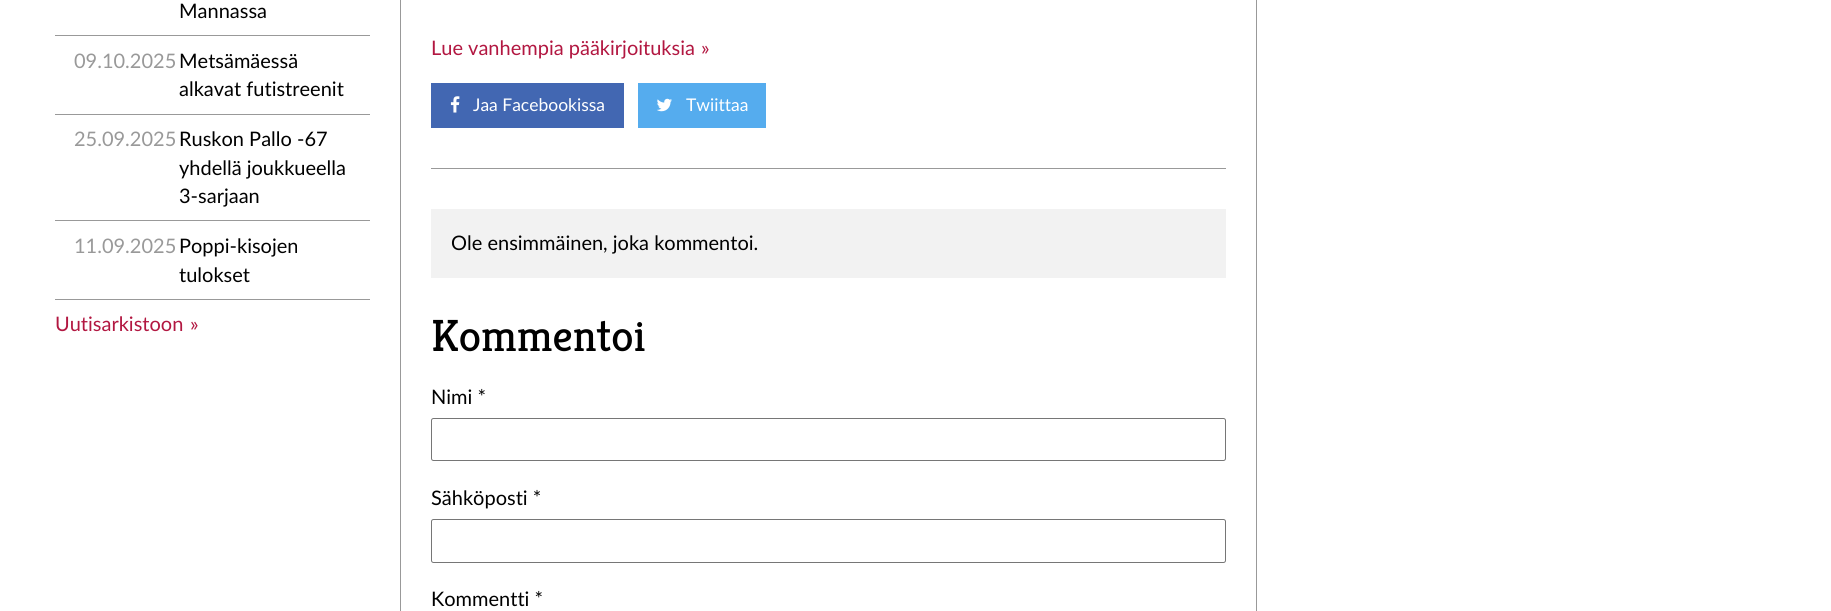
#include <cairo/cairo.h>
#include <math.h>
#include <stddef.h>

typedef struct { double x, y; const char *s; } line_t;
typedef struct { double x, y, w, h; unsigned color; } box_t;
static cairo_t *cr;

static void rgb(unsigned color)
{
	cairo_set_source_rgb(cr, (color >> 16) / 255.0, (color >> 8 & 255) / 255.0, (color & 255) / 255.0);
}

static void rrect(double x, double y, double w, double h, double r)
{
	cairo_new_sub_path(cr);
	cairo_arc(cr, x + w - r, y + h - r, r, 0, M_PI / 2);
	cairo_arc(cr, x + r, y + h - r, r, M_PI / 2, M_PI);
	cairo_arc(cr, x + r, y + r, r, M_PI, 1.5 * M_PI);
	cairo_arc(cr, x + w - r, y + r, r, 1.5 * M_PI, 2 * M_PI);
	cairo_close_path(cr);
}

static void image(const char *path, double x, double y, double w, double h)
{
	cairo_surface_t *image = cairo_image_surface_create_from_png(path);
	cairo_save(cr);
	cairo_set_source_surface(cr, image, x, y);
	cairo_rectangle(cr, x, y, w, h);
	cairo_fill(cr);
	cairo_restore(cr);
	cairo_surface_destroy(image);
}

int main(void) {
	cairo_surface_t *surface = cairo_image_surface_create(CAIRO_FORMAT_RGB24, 1831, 611);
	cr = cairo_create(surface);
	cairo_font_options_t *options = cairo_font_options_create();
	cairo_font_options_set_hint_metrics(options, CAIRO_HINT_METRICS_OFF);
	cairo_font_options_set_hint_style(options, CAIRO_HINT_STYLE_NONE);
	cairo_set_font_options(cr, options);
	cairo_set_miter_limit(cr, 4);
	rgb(0xffffff);
	cairo_paint(cr);
	{
		static const box_t items[] = {
			{55, 35, 315, 1, 0x999999},
			{55, 114, 315, 1, 0x999999},
			{55, 220, 315, 1, 0x999999},
			{55, 299, 315, 1, 0x999999},
			{1256, 0, 1, 611, 0x999999},
			{400, 0, 1, 611, 0x999999},
			{431, 168, 795, 1, 0x999999},
			{431, 83, 193, 45, 0x4267b2},
		};
		for (size_t i = 0; i < sizeof items / sizeof *items; i++) {
			rgb(items[i].color);
			cairo_rectangle(cr, items[i].x, items[i].y, items[i].w, items[i].h);
			cairo_fill(cr);
		}
	}
	image("img/1.png", 450, 96, 10, 17);
	rgb(0x55acee);
	cairo_rectangle(cr, 638, 83, 128, 45);
	cairo_fill(cr);
	image("img/2.png", 657, 98, 15, 14);
	rgb(0xf2f2f2);
	cairo_rectangle(cr, 431, 209, 795, 69);
	cairo_fill(cr);
	rrect(431.5, 418.5, 794, 42, 2);
	rgb(0x767676);
	cairo_set_line_width(cr, 1);
	cairo_stroke(cr);
	rrect(431.5, 519.5, 794, 43, 2);
	cairo_stroke(cr);
	cairo_select_font_face(cr, "Lato", CAIRO_FONT_SLANT_NORMAL, CAIRO_FONT_WEIGHT_NORMAL);
	cairo_set_font_size(cr, 20);
	rgb(0x000000);
	cairo_move_to(cr, 179, 18);
	cairo_show_text(cr, "Mannassa");
	rgb(0x999999);
	cairo_move_to(cr, 74, 68);
	cairo_show_text(cr, "09.10.2025");
	rgb(0x000000);
	cairo_move_to(cr, 179, 68);
	cairo_show_text(cr, "Metsämäessä");
	cairo_move_to(cr, 179, 96);
	cairo_show_text(cr, "alkavat futistreenit");
	rgb(0x999999);
	cairo_move_to(cr, 74, 146);
	cairo_show_text(cr, "25.09.2025");
	rgb(0x000000);
	{
		static const line_t items[] = {
			{179, 146, "Ruskon Pallo -67"},
			{179, 175, "yhdellä joukkueella"},
			{179, 203, "3-sarjaan"},
		};
		for (size_t i = 0; i < sizeof items / sizeof *items; i++) {
			cairo_move_to(cr, items[i].x, items[i].y);
			cairo_show_text(cr, items[i].s);
		}
	}
	rgb(0x999999);
	cairo_move_to(cr, 74, 253);
	cairo_show_text(cr, "11.09.2025");
	rgb(0x000000);
	cairo_move_to(cr, 179, 253);
	cairo_show_text(cr, "Poppi-kisojen");
	cairo_move_to(cr, 179, 282);
	cairo_show_text(cr, "tulokset");
	rgb(0xb21741);
	{
		static const line_t items[] = {
			{55, 331, "Uutisarkistoon"},
			{190, 331, "»"},
			{431, 55, "Lue vanhempia pääkirjoituksia"},
			{701, 55, "»"},
		};
		for (size_t i = 0; i < sizeof items / sizeof *items; i++) {
			cairo_move_to(cr, items[i].x, items[i].y);
			cairo_show_text(cr, items[i].s);
		}
	}
	cairo_set_font_size(cr, 17.5);
	rgb(0xffffff);
	cairo_move_to(cr, 473, 111);
	cairo_show_text(cr, "Jaa Facebookissa");
	cairo_move_to(cr, 686, 111);
	cairo_show_text(cr, "Twiittaa");
	cairo_set_font_size(cr, 20);
	rgb(0x000000);
	cairo_move_to(cr, 451, 250);
	cairo_show_text(cr, "Ole ensimmäinen, joka kommentoi.");
	cairo_select_font_face(cr, "Kreon", CAIRO_FONT_SLANT_NORMAL, CAIRO_FONT_WEIGHT_NORMAL);
	cairo_set_font_size(cr, 45);
	cairo_move_to(cr, 431, 351);
	cairo_show_text(cr, "Kommentoi");
	cairo_select_font_face(cr, "Lato", CAIRO_FONT_SLANT_NORMAL, CAIRO_FONT_WEIGHT_NORMAL);
	cairo_set_font_size(cr, 20);
	{
		static const line_t items[] = {
			{431, 404, "Nimi *"},
			{431, 505, "Sähköposti *"},
			{431, 606, "Kommentti *"},
		};
		for (size_t i = 0; i < sizeof items / sizeof *items; i++) {
			cairo_move_to(cr, items[i].x, items[i].y);
			cairo_show_text(cr, items[i].s);
		}
	}
	cairo_surface_write_to_png(surface, "page.png");
	cairo_font_options_destroy(options);
	cairo_destroy(cr);
	cairo_surface_destroy(surface);
	return 0;
}
